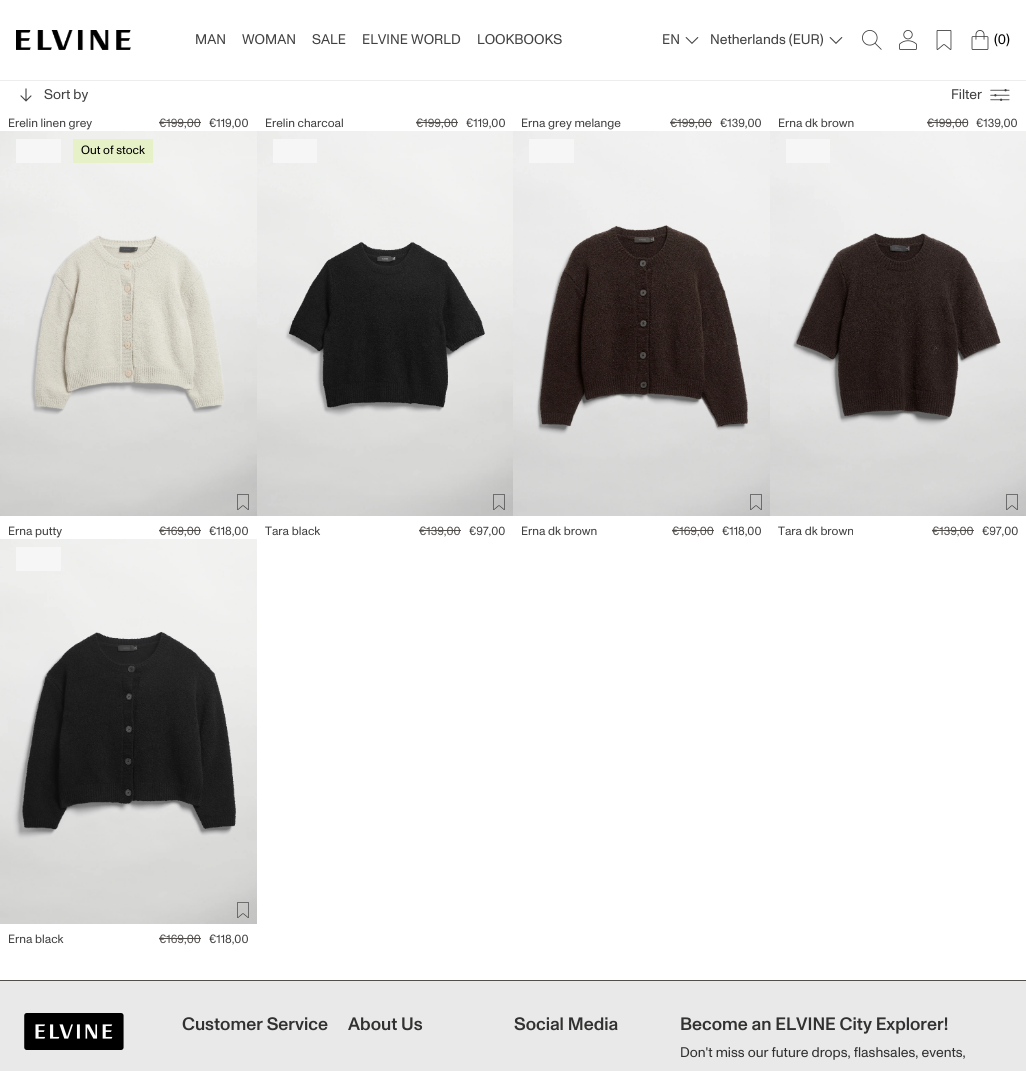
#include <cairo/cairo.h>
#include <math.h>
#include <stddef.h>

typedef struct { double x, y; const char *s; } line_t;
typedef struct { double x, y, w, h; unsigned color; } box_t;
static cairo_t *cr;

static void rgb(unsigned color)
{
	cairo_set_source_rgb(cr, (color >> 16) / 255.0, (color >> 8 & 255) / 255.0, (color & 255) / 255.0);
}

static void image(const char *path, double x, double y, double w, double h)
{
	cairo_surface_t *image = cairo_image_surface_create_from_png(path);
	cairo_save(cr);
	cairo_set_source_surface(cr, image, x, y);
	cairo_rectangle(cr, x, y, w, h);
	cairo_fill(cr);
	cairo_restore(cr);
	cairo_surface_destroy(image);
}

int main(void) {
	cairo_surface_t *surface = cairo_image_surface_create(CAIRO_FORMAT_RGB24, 1026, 1071);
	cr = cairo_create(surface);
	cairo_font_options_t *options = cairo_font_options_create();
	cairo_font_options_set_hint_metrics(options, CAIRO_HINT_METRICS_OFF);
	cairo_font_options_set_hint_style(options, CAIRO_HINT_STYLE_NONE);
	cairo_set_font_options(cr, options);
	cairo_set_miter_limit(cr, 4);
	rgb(0xffffff);
	cairo_paint(cr);
	rgb(0xededee);
	cairo_rectangle(cr, 0, 80, 1026, 1);
	cairo_fill(cr);
	image("img/1.png", 16, 30, 115, 20);
	image("img/2.png", 685, 37, 14, 7);
	image("img/2.png", 829, 37, 14, 7);
	image("img/3.png", 862, 30, 20, 20);
	image("img/4.png", 899, 30, 18, 20);
	image("img/5.png", 936, 30, 16, 20);
	image("img/6.png", 971, 30, 18, 20);
	image("img/7.png", 20, 88, 12, 14);
	image("img/8.png", 990, 89, 20, 12);
	{
		static const box_t items[] = {
			{159, 122, 42, 1, 0x514e4c},
			{416, 122, 42, 1, 0x514e4c},
			{670, 122, 42, 1, 0x514e4c},
			{927, 122, 41, 1, 0x514e4c},
		};
		for (size_t i = 0; i < sizeof items / sizeof *items; i++) {
			rgb(items[i].color);
			cairo_rectangle(cr, items[i].x, items[i].y, items[i].w, items[i].h);
			cairo_fill(cr);
		}
	}
	image("img/9.png", 0, 131, 257, 385);
	rgb(0xf6f6f6);
	cairo_rectangle(cr, 16, 139, 45, 24);
	cairo_fill(cr);
	rgb(0xe7f1c8);
	cairo_rectangle(cr, 73, 139, 80, 24);
	cairo_fill(cr);
	image("img/10.png", 237, 494, 12, 16);
	rgb(0x514e4c);
	cairo_rectangle(cr, 159, 530, 42, 1);
	cairo_fill(cr);
	image("img/11.png", 257, 131, 256, 385);
	rgb(0xf6f6f6);
	cairo_rectangle(cr, 273, 139, 44, 24);
	cairo_fill(cr);
	image("img/12.png", 493, 494, 12, 16);
	rgb(0x514e4c);
	cairo_rectangle(cr, 419, 530, 42, 1);
	cairo_fill(cr);
	image("img/13.png", 513, 131, 257, 385);
	rgb(0xf6f6f6);
	cairo_rectangle(cr, 529, 139, 45, 24);
	cairo_fill(cr);
	image("img/14.png", 750, 494, 12, 16);
	rgb(0x514e4c);
	cairo_rectangle(cr, 672, 530, 42, 1);
	cairo_fill(cr);
	image("img/15.png", 770, 131, 256, 385);
	rgb(0xf6f6f6);
	cairo_rectangle(cr, 786, 139, 44, 24);
	cairo_fill(cr);
	image("img/16.png", 1006, 494, 12, 16);
	rgb(0x514e4c);
	cairo_rectangle(cr, 932, 530, 42, 1);
	cairo_fill(cr);
	image("img/17.png", 0, 539, 257, 385);
	rgb(0xf6f6f6);
	cairo_rectangle(cr, 16, 547, 45, 24);
	cairo_fill(cr);
	image("img/18.png", 237, 902, 12, 16);
	{
		static const box_t items[] = {
			{159, 938, 42, 1, 0x514e4c},
			{0, 981, 1026, 90, 0xe9e9e9},
			{0, 980, 1026, 1, 0x514e4c},
		};
		for (size_t i = 0; i < sizeof items / sizeof *items; i++) {
			rgb(items[i].color);
			cairo_rectangle(cr, items[i].x, items[i].y, items[i].w, items[i].h);
			cairo_fill(cr);
		}
	}
	image("img/19.png", 24, 1013, 100, 37);
	cairo_select_font_face(cr, "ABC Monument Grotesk", CAIRO_FONT_SLANT_NORMAL, CAIRO_FONT_WEIGHT_NORMAL);
	cairo_set_font_size(cr, 14);
	rgb(0x414141);
	{
		static const line_t items[] = {
			{195, 44, "MAN"},
			{242, 44, "WOMAN"},
			{312, 44, "SALE"},
			{362, 44, "ELVINE WORLD"},
			{477, 44, "LOOKBOOKS"},
			{662, 44, "EN"},
			{710, 44, "Netherlands (EUR)"},
		};
		for (size_t i = 0; i < sizeof items / sizeof *items; i++) {
			cairo_move_to(cr, items[i].x, items[i].y);
			cairo_show_text(cr, items[i].s);
		}
	}
	rgb(0x000000);
	cairo_move_to(cr, 994, 44);
	cairo_show_text(cr, "(0)");
	rgb(0x414141);
	cairo_move_to(cr, 44, 99);
	cairo_show_text(cr, "Sort by");
	cairo_move_to(cr, 951, 99);
	cairo_show_text(cr, "Filter");
	cairo_set_font_size(cr, 12);
	cairo_move_to(cr, 8, 127);
	cairo_show_text(cr, "Erelin linen grey");
	rgb(0x514e4c);
	cairo_move_to(cr, 159, 127);
	cairo_show_text(cr, "€199,00");
	rgb(0x414141);
	cairo_move_to(cr, 209, 127);
	cairo_show_text(cr, "€119,00");
	cairo_move_to(cr, 265, 127);
	cairo_show_text(cr, "Erelin charcoal");
	rgb(0x514e4c);
	cairo_move_to(cr, 416, 127);
	cairo_show_text(cr, "€199,00");
	rgb(0x414141);
	cairo_move_to(cr, 466, 127);
	cairo_show_text(cr, "€119,00");
	cairo_move_to(cr, 521, 127);
	cairo_show_text(cr, "Erna grey melange");
	rgb(0x514e4c);
	cairo_move_to(cr, 670, 127);
	cairo_show_text(cr, "€199,00");
	rgb(0x414141);
	cairo_move_to(cr, 720, 127);
	cairo_show_text(cr, "€139,00");
	cairo_move_to(cr, 778, 127);
	cairo_show_text(cr, "Erna dk brown");
	rgb(0x514e4c);
	cairo_move_to(cr, 927, 127);
	cairo_show_text(cr, "€199,00");
	rgb(0x414141);
	cairo_move_to(cr, 976, 127);
	cairo_show_text(cr, "€139,00");
	rgb(0x000000);
	cairo_move_to(cr, 81, 154);
	cairo_show_text(cr, "Out of stock");
	rgb(0x414141);
	cairo_move_to(cr, 8, 535);
	cairo_show_text(cr, "Erna putty");
	rgb(0x514e4c);
	cairo_move_to(cr, 159, 535);
	cairo_show_text(cr, "€169,00");
	rgb(0x414141);
	cairo_move_to(cr, 209, 535);
	cairo_show_text(cr, "€118,00");
	cairo_move_to(cr, 265, 535);
	cairo_show_text(cr, "Tara black");
	rgb(0x514e4c);
	cairo_move_to(cr, 419, 535);
	cairo_show_text(cr, "€139,00");
	rgb(0x414141);
	cairo_move_to(cr, 469, 535);
	cairo_show_text(cr, "€97,00");
	cairo_move_to(cr, 521, 535);
	cairo_show_text(cr, "Erna dk brown");
	rgb(0x514e4c);
	cairo_move_to(cr, 672, 535);
	cairo_show_text(cr, "€169,00");
	rgb(0x414141);
	cairo_move_to(cr, 722, 535);
	cairo_show_text(cr, "€118,00");
	cairo_move_to(cr, 778, 535);
	cairo_show_text(cr, "Tara dk brown");
	rgb(0x514e4c);
	cairo_move_to(cr, 932, 535);
	cairo_show_text(cr, "€139,00");
	rgb(0x414141);
	cairo_move_to(cr, 982, 535);
	cairo_show_text(cr, "€97,00");
	cairo_move_to(cr, 8, 943);
	cairo_show_text(cr, "Erna black");
	rgb(0x514e4c);
	cairo_move_to(cr, 159, 943);
	cairo_show_text(cr, "€169,00");
	rgb(0x414141);
	cairo_move_to(cr, 209, 943);
	cairo_show_text(cr, "€118,00");
	cairo_select_font_face(cr, "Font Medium", CAIRO_FONT_SLANT_NORMAL, CAIRO_FONT_WEIGHT_NORMAL);
	cairo_set_font_size(cr, 18);
	rgb(0x313130);
	{
		static const line_t items[] = {
			{182, 1030, "Customer Service"},
			{348, 1030, "About Us"},
			{514, 1030, "Social Media"},
			{680, 1030, "Become an ELVINE City Explorer!"},
		};
		for (size_t i = 0; i < sizeof items / sizeof *items; i++) {
			cairo_move_to(cr, items[i].x, items[i].y);
			cairo_show_text(cr, items[i].s);
		}
	}
	cairo_select_font_face(cr, "ABC Monument Grotesk", CAIRO_FONT_SLANT_NORMAL, CAIRO_FONT_WEIGHT_NORMAL);
	cairo_set_font_size(cr, 14);
	cairo_move_to(cr, 680, 1057);
	cairo_show_text(cr, "Don't miss our future drops, flashsales, events,");
	cairo_surface_write_to_png(surface, "page.png");
	cairo_font_options_destroy(options);
	cairo_destroy(cr);
	cairo_surface_destroy(surface);
	return 0;
}
